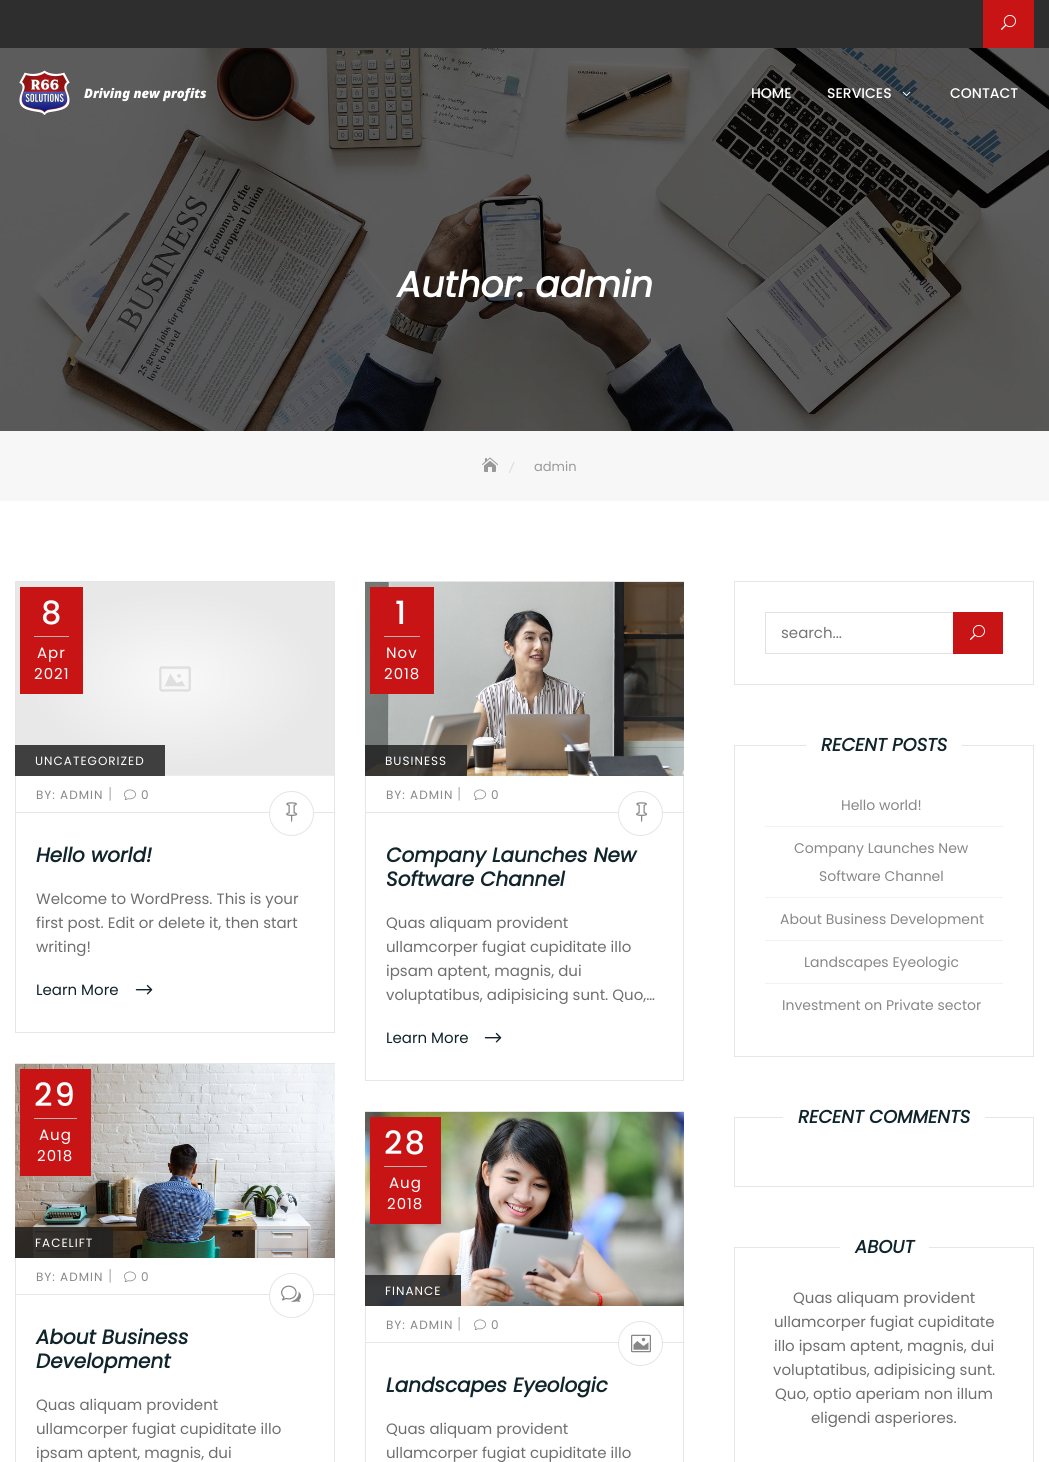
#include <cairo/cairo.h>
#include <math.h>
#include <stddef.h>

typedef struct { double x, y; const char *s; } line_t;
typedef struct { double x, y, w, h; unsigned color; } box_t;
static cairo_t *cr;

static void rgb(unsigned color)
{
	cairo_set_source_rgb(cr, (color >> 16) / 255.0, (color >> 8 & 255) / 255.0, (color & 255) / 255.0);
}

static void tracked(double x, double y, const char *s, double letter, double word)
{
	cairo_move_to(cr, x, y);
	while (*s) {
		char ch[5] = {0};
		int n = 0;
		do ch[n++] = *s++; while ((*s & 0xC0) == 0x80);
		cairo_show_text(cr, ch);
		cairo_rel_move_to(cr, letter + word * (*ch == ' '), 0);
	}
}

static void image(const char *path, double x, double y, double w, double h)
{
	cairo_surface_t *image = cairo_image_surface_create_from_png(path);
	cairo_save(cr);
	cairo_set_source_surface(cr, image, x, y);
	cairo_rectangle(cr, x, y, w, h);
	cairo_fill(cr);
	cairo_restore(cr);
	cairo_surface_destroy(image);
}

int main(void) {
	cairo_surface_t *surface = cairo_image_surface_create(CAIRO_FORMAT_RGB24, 1049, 1462);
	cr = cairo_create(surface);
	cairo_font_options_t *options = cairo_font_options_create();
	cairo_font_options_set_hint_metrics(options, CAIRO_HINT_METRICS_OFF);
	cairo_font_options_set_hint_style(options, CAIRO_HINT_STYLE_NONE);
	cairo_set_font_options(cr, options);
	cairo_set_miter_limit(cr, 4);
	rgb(0xffffff);
	cairo_paint(cr);
	rgb(0x2e2e2e);
	cairo_rectangle(cr, 0, 0, 1049, 48);
	cairo_fill(cr);
	rgb(0xc91415);
	cairo_rectangle(cr, 983, 0, 51, 48);
	cairo_fill(cr);
	image("img/1.png", 1001, 14, 15, 16);
	image("img/4.png", 0, 48, 1049, 383);
	image("img/2.png", 19, 70, 51, 45);
	image("img/3.png", 902, 91, 9, 5);
	rgb(0xf7f7f7);
	cairo_rectangle(cr, 0, 431, 1049, 70);
	cairo_fill(cr);
	image("img/5.png", 482, 457, 16, 15);
	rgb(0xcccccc);
	cairo_new_path(cr);
	cairo_move_to(cr, 514, 461.5);
	cairo_line_to(cr, 514.5, 462);
	cairo_line_to(cr, 509.5, 473);
	cairo_line_to(cr, 509, 472.5);
	cairo_close_path(cr);
	cairo_fill(cr);
	cairo_rectangle(cr, 15.5, 581.5, 319, 451);
	rgb(0xe6e6e6);
	cairo_set_line_width(cr, 1);
	cairo_stroke(cr);
	image("img/6.png", 16, 582, 318, 194);
	rgb(0xc91415);
	cairo_rectangle(cr, 20, 587, 63, 107);
	cairo_fill(cr);
	rgb(0xb3b3b3);
	cairo_rectangle(cr, 34, 636, 35, 1);
	cairo_fill(cr);
	cairo_set_source_rgba(cr, 0.129, 0.129, 0.129, 0.85);
	cairo_rectangle(cr, 15, 745, 150, 31);
	cairo_fill(cr);
	rgb(0xe6e6e6);
	cairo_rectangle(cr, 16, 812, 318, 1);
	cairo_fill(cr);
	image("img/7.png", 124, 789, 12, 11);
	rgb(0xffffff);
	cairo_arc(cr, 291.5, 813.5, 22, 0, 2 * M_PI);
	cairo_fill_preserve(cr);
	rgb(0xe5e5e5);
	cairo_stroke(cr);
	image("img/8.png", 286, 802, 12, 21);
	image("img/9.png", 135, 984, 18, 11);
	cairo_rectangle(cr, 365.5, 581.5, 318, 499);
	rgb(0xe6e6e6);
	cairo_stroke(cr);
	image("img/10.png", 365, 582, 319, 194);
	rgb(0xc91415);
	cairo_rectangle(cr, 370, 587, 64, 107);
	cairo_fill(cr);
	rgb(0xb3b3b3);
	cairo_rectangle(cr, 384, 636, 36, 1);
	cairo_fill(cr);
	cairo_set_source_rgba(cr, 0.129, 0.129, 0.129, 0.85);
	cairo_rectangle(cr, 365, 745, 102, 31);
	cairo_fill(cr);
	rgb(0xe6e6e6);
	cairo_rectangle(cr, 366, 812, 317, 1);
	cairo_fill(cr);
	image("img/7.png", 474, 789, 12, 11);
	rgb(0xffffff);
	cairo_arc(cr, 640.5, 813.5, 22, 0, 2 * M_PI);
	cairo_fill_preserve(cr);
	rgb(0xe5e5e5);
	cairo_stroke(cr);
	image("img/8.png", 636, 802, 12, 21);
	image("img/9.png", 484, 1032, 18, 11);
	cairo_rectangle(cr, 15.5, 1063.5, 319, 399);
	rgb(0xe6e6e6);
	cairo_stroke(cr);
	image("img/11.png", 15, 1064, 320, 194);
	rgb(0xc91415);
	cairo_rectangle(cr, 20, 1069, 71, 107);
	cairo_fill(cr);
	rgb(0xb3b3b3);
	cairo_rectangle(cr, 34, 1118, 43, 1);
	cairo_fill(cr);
	cairo_set_source_rgba(cr, 0.129, 0.129, 0.129, 0.85);
	cairo_rectangle(cr, 15, 1227, 98, 31);
	cairo_fill(cr);
	rgb(0xe6e6e6);
	cairo_rectangle(cr, 16, 1294, 318, 1);
	cairo_fill(cr);
	image("img/7.png", 124, 1271, 12, 11);
	rgb(0xffffff);
	cairo_arc(cr, 291.5, 1295.5, 22, 0, 2 * M_PI);
	cairo_fill_preserve(cr);
	rgb(0xe5e5e5);
	cairo_stroke(cr);
	image("img/12.png", 281, 1285, 20, 17);
	cairo_rectangle(cr, 365.5, 1111.5, 318, 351);
	rgb(0xe6e6e6);
	cairo_stroke(cr);
	image("img/13.png", 365, 1112, 319, 194);
	rgb(0xc91415);
	cairo_rectangle(cr, 370, 1117, 71, 107);
	cairo_fill(cr);
	rgb(0xb3b3b3);
	cairo_rectangle(cr, 384, 1166, 43, 1);
	cairo_fill(cr);
	cairo_set_source_rgba(cr, 0.129, 0.129, 0.129, 0.85);
	cairo_rectangle(cr, 365, 1275, 96, 31);
	cairo_fill(cr);
	rgb(0xe6e6e6);
	cairo_rectangle(cr, 366, 1342, 317, 1);
	cairo_fill(cr);
	image("img/7.png", 474, 1319, 12, 11);
	rgb(0xffffff);
	cairo_arc(cr, 640.5, 1343.5, 22, 0, 2 * M_PI);
	cairo_fill_preserve(cr);
	rgb(0xe5e5e5);
	cairo_stroke(cr);
	image("img/14.png", 631, 1334, 20, 19);
	cairo_rectangle(cr, 734.5, 581.5, 299, 103);
	rgb(0xe6e6e6);
	cairo_stroke(cr);
	cairo_rectangle(cr, 765.5, 612.5, 237, 41);
	rgb(0xe1e1e1);
	cairo_stroke(cr);
	rgb(0xc91415);
	cairo_rectangle(cr, 953, 612, 50, 42);
	cairo_fill(cr);
	image("img/1.png", 970, 624, 15, 16);
	cairo_rectangle(cr, 734.5, 745.5, 299, 311);
	rgb(0xe6e6e6);
	cairo_stroke(cr);
	{
		static const box_t items[] = {
			{806, 745, 156, 1, 0xffffff},
			{765, 826, 238, 1, 0xf2f2f2},
			{765, 897, 238, 1, 0xf2f2f2},
			{765, 940, 238, 1, 0xf2f2f2},
			{765, 983, 238, 1, 0xf2f2f2},
		};
		for (size_t i = 0; i < sizeof items / sizeof *items; i++) {
			rgb(items[i].color);
			cairo_rectangle(cr, items[i].x, items[i].y, items[i].w, items[i].h);
			cairo_fill(cr);
		}
	}
	cairo_rectangle(cr, 734.5, 1117.5, 299, 69);
	rgb(0xe6e6e6);
	cairo_stroke(cr);
	rgb(0xffffff);
	cairo_rectangle(cr, 783, 1117, 202, 1);
	cairo_fill(cr);
	cairo_rectangle(cr, 734.5, 1247.5, 299, 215);
	rgb(0xe6e6e6);
	cairo_stroke(cr);
	rgb(0xffffff);
	cairo_rectangle(cr, 840, 1247, 89, 1);
	cairo_fill(cr);
	cairo_select_font_face(cr, "Noto Sans Black", CAIRO_FONT_SLANT_ITALIC, CAIRO_FONT_WEIGHT_NORMAL);
	cairo_set_font_size(cr, 13);
	cairo_move_to(cr, 84, 98);
	cairo_show_text(cr, "Driving new profits");
	cairo_select_font_face(cr, "Poppins Medium", CAIRO_FONT_SLANT_NORMAL, CAIRO_FONT_WEIGHT_NORMAL);
	cairo_set_font_size(cr, 14);
	{
		static const line_t items[] = {
			{751, 98, "HOME"},
			{827, 98, "SERVICES"},
			{950, 98, "CONTACT"},
		};
		for (size_t i = 0; i < sizeof items / sizeof *items; i++) {
			cairo_move_to(cr, items[i].x, items[i].y);
			cairo_show_text(cr, items[i].s);
		}
	}
	cairo_select_font_face(cr, "Poppins", CAIRO_FONT_SLANT_ITALIC, CAIRO_FONT_WEIGHT_BOLD);
	cairo_set_font_size(cr, 36);
	cairo_move_to(cr, 397, 297);
	cairo_show_text(cr, "Author: admin");
	cairo_select_font_face(cr, "Poppins", CAIRO_FONT_SLANT_NORMAL, CAIRO_FONT_WEIGHT_NORMAL);
	cairo_set_font_size(cr, 13);
	rgb(0x999999);
	cairo_move_to(cr, 534, 471);
	cairo_show_text(cr, "admin");
	cairo_select_font_face(cr, "Poppins Medium", CAIRO_FONT_SLANT_NORMAL, CAIRO_FONT_WEIGHT_NORMAL);
	cairo_set_font_size(cr, 32);
	rgb(0xffffff);
	tracked(41, 624, "8", 2, 0);
	cairo_select_font_face(cr, "Poppins", CAIRO_FONT_SLANT_NORMAL, CAIRO_FONT_WEIGHT_NORMAL);
	cairo_set_font_size(cr, 15);
	tracked(37, 658, "Apr", 1, 0);
	tracked(34, 679, "2021", 1, 0);
	cairo_set_font_size(cr, 12);
	tracked(35, 765, "UNCATEGORIZED", 1, 0);
	rgb(0x878787);
	tracked(36, 799, "BY: ADMIN", 1, 0);
	cairo_set_font_size(cr, 15);
	rgb(0xbbbbbb);
	cairo_move_to(cr, 108, 799);
	cairo_show_text(cr, "|");
	cairo_set_font_size(cr, 12);
	rgb(0x878787);
	tracked(141, 799, "0", 1, 0);
	cairo_select_font_face(cr, "Poppins", CAIRO_FONT_SLANT_ITALIC, CAIRO_FONT_WEIGHT_BOLD);
	cairo_set_font_size(cr, 20);
	rgb(0x10242b);
	cairo_move_to(cr, 36, 862);
	cairo_show_text(cr, "Hello world!");
	cairo_select_font_face(cr, "Poppins", CAIRO_FONT_SLANT_NORMAL, CAIRO_FONT_WEIGHT_NORMAL);
	cairo_set_font_size(cr, 15);
	rgb(0x6e6e6e);
	{
		static const line_t items[] = {
			{36, 904, "Welcome to WordPress. This is your"},
			{36, 928, "first post. Edit or delete it, then start"},
			{36, 952, "writing!"},
		};
		for (size_t i = 0; i < sizeof items / sizeof *items; i++) {
			cairo_move_to(cr, items[i].x, items[i].y);
			cairo_show_text(cr, items[i].s);
		}
	}
	rgb(0x10242b);
	cairo_move_to(cr, 36, 995);
	cairo_show_text(cr, "Learn More");
	cairo_select_font_face(cr, "Poppins Medium", CAIRO_FONT_SLANT_NORMAL, CAIRO_FONT_WEIGHT_NORMAL);
	cairo_set_font_size(cr, 32);
	rgb(0xffffff);
	tracked(395, 624, "1", 2, 0);
	cairo_select_font_face(cr, "Poppins", CAIRO_FONT_SLANT_NORMAL, CAIRO_FONT_WEIGHT_NORMAL);
	cairo_set_font_size(cr, 15);
	tracked(386, 658, "Nov", 1, 0);
	tracked(384, 679, "2018", 1, 0);
	cairo_set_font_size(cr, 12);
	tracked(385, 765, "BUSINESS", 1, 0);
	rgb(0x878787);
	tracked(386, 799, "BY: ADMIN", 1, 0);
	cairo_set_font_size(cr, 15);
	rgb(0xbbbbbb);
	cairo_move_to(cr, 457, 799);
	cairo_show_text(cr, "|");
	cairo_set_font_size(cr, 12);
	rgb(0x878787);
	tracked(491, 799, "0", 1, 0);
	cairo_select_font_face(cr, "Poppins", CAIRO_FONT_SLANT_ITALIC, CAIRO_FONT_WEIGHT_BOLD);
	cairo_set_font_size(cr, 20);
	rgb(0x10242b);
	cairo_move_to(cr, 386, 862);
	cairo_show_text(cr, "Company Launches New");
	cairo_move_to(cr, 386, 886);
	cairo_show_text(cr, "Software Channel");
	cairo_select_font_face(cr, "Poppins", CAIRO_FONT_SLANT_NORMAL, CAIRO_FONT_WEIGHT_NORMAL);
	cairo_set_font_size(cr, 15);
	rgb(0x6e6e6e);
	{
		static const line_t items[] = {
			{386, 928, "Quas aliquam provident"},
			{386, 952, "ullamcorper fugiat cupiditate illo"},
			{386, 976, "ipsam aptent, magnis, dui"},
			{386, 1000, "voluptatibus, adipisicing sunt. Quo,…"},
		};
		for (size_t i = 0; i < sizeof items / sizeof *items; i++) {
			cairo_move_to(cr, items[i].x, items[i].y);
			cairo_show_text(cr, items[i].s);
		}
	}
	rgb(0x10242b);
	cairo_move_to(cr, 386, 1043);
	cairo_show_text(cr, "Learn More");
	cairo_select_font_face(cr, "Poppins Medium", CAIRO_FONT_SLANT_NORMAL, CAIRO_FONT_WEIGHT_NORMAL);
	cairo_set_font_size(cr, 32);
	rgb(0xffffff);
	tracked(34, 1106, "29", 2, 0);
	cairo_select_font_face(cr, "Poppins", CAIRO_FONT_SLANT_NORMAL, CAIRO_FONT_WEIGHT_NORMAL);
	cairo_set_font_size(cr, 15);
	tracked(39, 1140, "Aug", 1, 0);
	tracked(37, 1161, "2018", 1, 0);
	cairo_set_font_size(cr, 12);
	tracked(35, 1247, "FACELIFT", 1, 0);
	rgb(0x878787);
	tracked(36, 1281, "BY: ADMIN", 1, 0);
	cairo_set_font_size(cr, 15);
	rgb(0xbbbbbb);
	cairo_move_to(cr, 108, 1281);
	cairo_show_text(cr, "|");
	cairo_set_font_size(cr, 12);
	rgb(0x878787);
	tracked(141, 1281, "0", 1, 0);
	cairo_select_font_face(cr, "Poppins", CAIRO_FONT_SLANT_ITALIC, CAIRO_FONT_WEIGHT_BOLD);
	cairo_set_font_size(cr, 20);
	rgb(0x10242b);
	cairo_move_to(cr, 36, 1344);
	cairo_show_text(cr, "About Business");
	cairo_move_to(cr, 36, 1368);
	cairo_show_text(cr, "Development");
	cairo_select_font_face(cr, "Poppins", CAIRO_FONT_SLANT_NORMAL, CAIRO_FONT_WEIGHT_NORMAL);
	cairo_set_font_size(cr, 15);
	rgb(0x6e6e6e);
	{
		static const line_t items[] = {
			{36, 1410, "Quas aliquam provident"},
			{36, 1434, "ullamcorper fugiat cupiditate illo"},
			{36, 1458, "ipsam aptent, magnis, dui"},
		};
		for (size_t i = 0; i < sizeof items / sizeof *items; i++) {
			cairo_move_to(cr, items[i].x, items[i].y);
			cairo_show_text(cr, items[i].s);
		}
	}
	cairo_select_font_face(cr, "Poppins Medium", CAIRO_FONT_SLANT_NORMAL, CAIRO_FONT_WEIGHT_NORMAL);
	cairo_set_font_size(cr, 32);
	rgb(0xffffff);
	tracked(384, 1154, "28", 2, 0);
	cairo_select_font_face(cr, "Poppins", CAIRO_FONT_SLANT_NORMAL, CAIRO_FONT_WEIGHT_NORMAL);
	cairo_set_font_size(cr, 15);
	tracked(389, 1188, "Aug", 1, 0);
	tracked(387, 1209, "2018", 1, 0);
	cairo_set_font_size(cr, 12);
	tracked(385, 1295, "FINANCE", 1, 0);
	rgb(0x878787);
	tracked(386, 1329, "BY: ADMIN", 1, 0);
	cairo_set_font_size(cr, 15);
	rgb(0xbbbbbb);
	cairo_move_to(cr, 457, 1329);
	cairo_show_text(cr, "|");
	cairo_set_font_size(cr, 12);
	rgb(0x878787);
	tracked(491, 1329, "0", 1, 0);
	cairo_select_font_face(cr, "Poppins", CAIRO_FONT_SLANT_ITALIC, CAIRO_FONT_WEIGHT_BOLD);
	cairo_set_font_size(cr, 20);
	rgb(0x10242b);
	cairo_move_to(cr, 386, 1392);
	cairo_show_text(cr, "Landscapes Eyeologic");
	cairo_select_font_face(cr, "Poppins", CAIRO_FONT_SLANT_NORMAL, CAIRO_FONT_WEIGHT_NORMAL);
	cairo_set_font_size(cr, 15);
	rgb(0x6e6e6e);
	cairo_move_to(cr, 386, 1434);
	cairo_show_text(cr, "Quas aliquam provident");
	cairo_move_to(cr, 386, 1458);
	cairo_show_text(cr, "ullamcorper fugiat cupiditate illo");
	rgb(0x757575);
	cairo_move_to(cr, 781, 638);
	cairo_show_text(cr, "search...");
	cairo_select_font_face(cr, "Poppins", CAIRO_FONT_SLANT_ITALIC, CAIRO_FONT_WEIGHT_BOLD);
	cairo_set_font_size(cr, 18);
	rgb(0x10242b);
	cairo_move_to(cr, 821, 751);
	cairo_show_text(cr, "RECENT POSTS");
	cairo_select_font_face(cr, "Poppins", CAIRO_FONT_SLANT_NORMAL, CAIRO_FONT_WEIGHT_NORMAL);
	cairo_set_font_size(cr, 14);
	rgb(0x878787);
	{
		static const line_t items[] = {
			{841, 810, "Hello world!"},
			{794, 853, "Company Launches New"},
			{819, 881, "Software Channel"},
			{780, 924, "About Business Development"},
			{804, 967, "Landscapes Eyeologic"},
			{782, 1010, "Investment on Private sector"},
		};
		for (size_t i = 0; i < sizeof items / sizeof *items; i++) {
			cairo_move_to(cr, items[i].x, items[i].y);
			cairo_show_text(cr, items[i].s);
		}
	}
	cairo_select_font_face(cr, "Poppins", CAIRO_FONT_SLANT_ITALIC, CAIRO_FONT_WEIGHT_BOLD);
	cairo_set_font_size(cr, 18);
	rgb(0x10242b);
	cairo_move_to(cr, 798, 1123);
	cairo_show_text(cr, "RECENT COMMENTS");
	cairo_move_to(cr, 855, 1253);
	cairo_show_text(cr, "ABOUT");
	cairo_select_font_face(cr, "Poppins", CAIRO_FONT_SLANT_NORMAL, CAIRO_FONT_WEIGHT_NORMAL);
	cairo_set_font_size(cr, 15);
	rgb(0x6e6e6e);
	{
		static const line_t items[] = {
			{793, 1303, "Quas aliquam provident"},
			{774, 1327, "ullamcorper fugiat cupiditate"},
			{774, 1351, "illo ipsam aptent, magnis, dui"},
			{773, 1375, "voluptatibus, adipisicing sunt."},
			{775, 1399, "Quo, optio aperiam non illum"},
			{811, 1423, "eligendi asperiores."},
		};
		for (size_t i = 0; i < sizeof items / sizeof *items; i++) {
			cairo_move_to(cr, items[i].x, items[i].y);
			cairo_show_text(cr, items[i].s);
		}
	}
	cairo_surface_write_to_png(surface, "page.png");
	cairo_font_options_destroy(options);
	cairo_destroy(cr);
	cairo_surface_destroy(surface);
	return 0;
}
